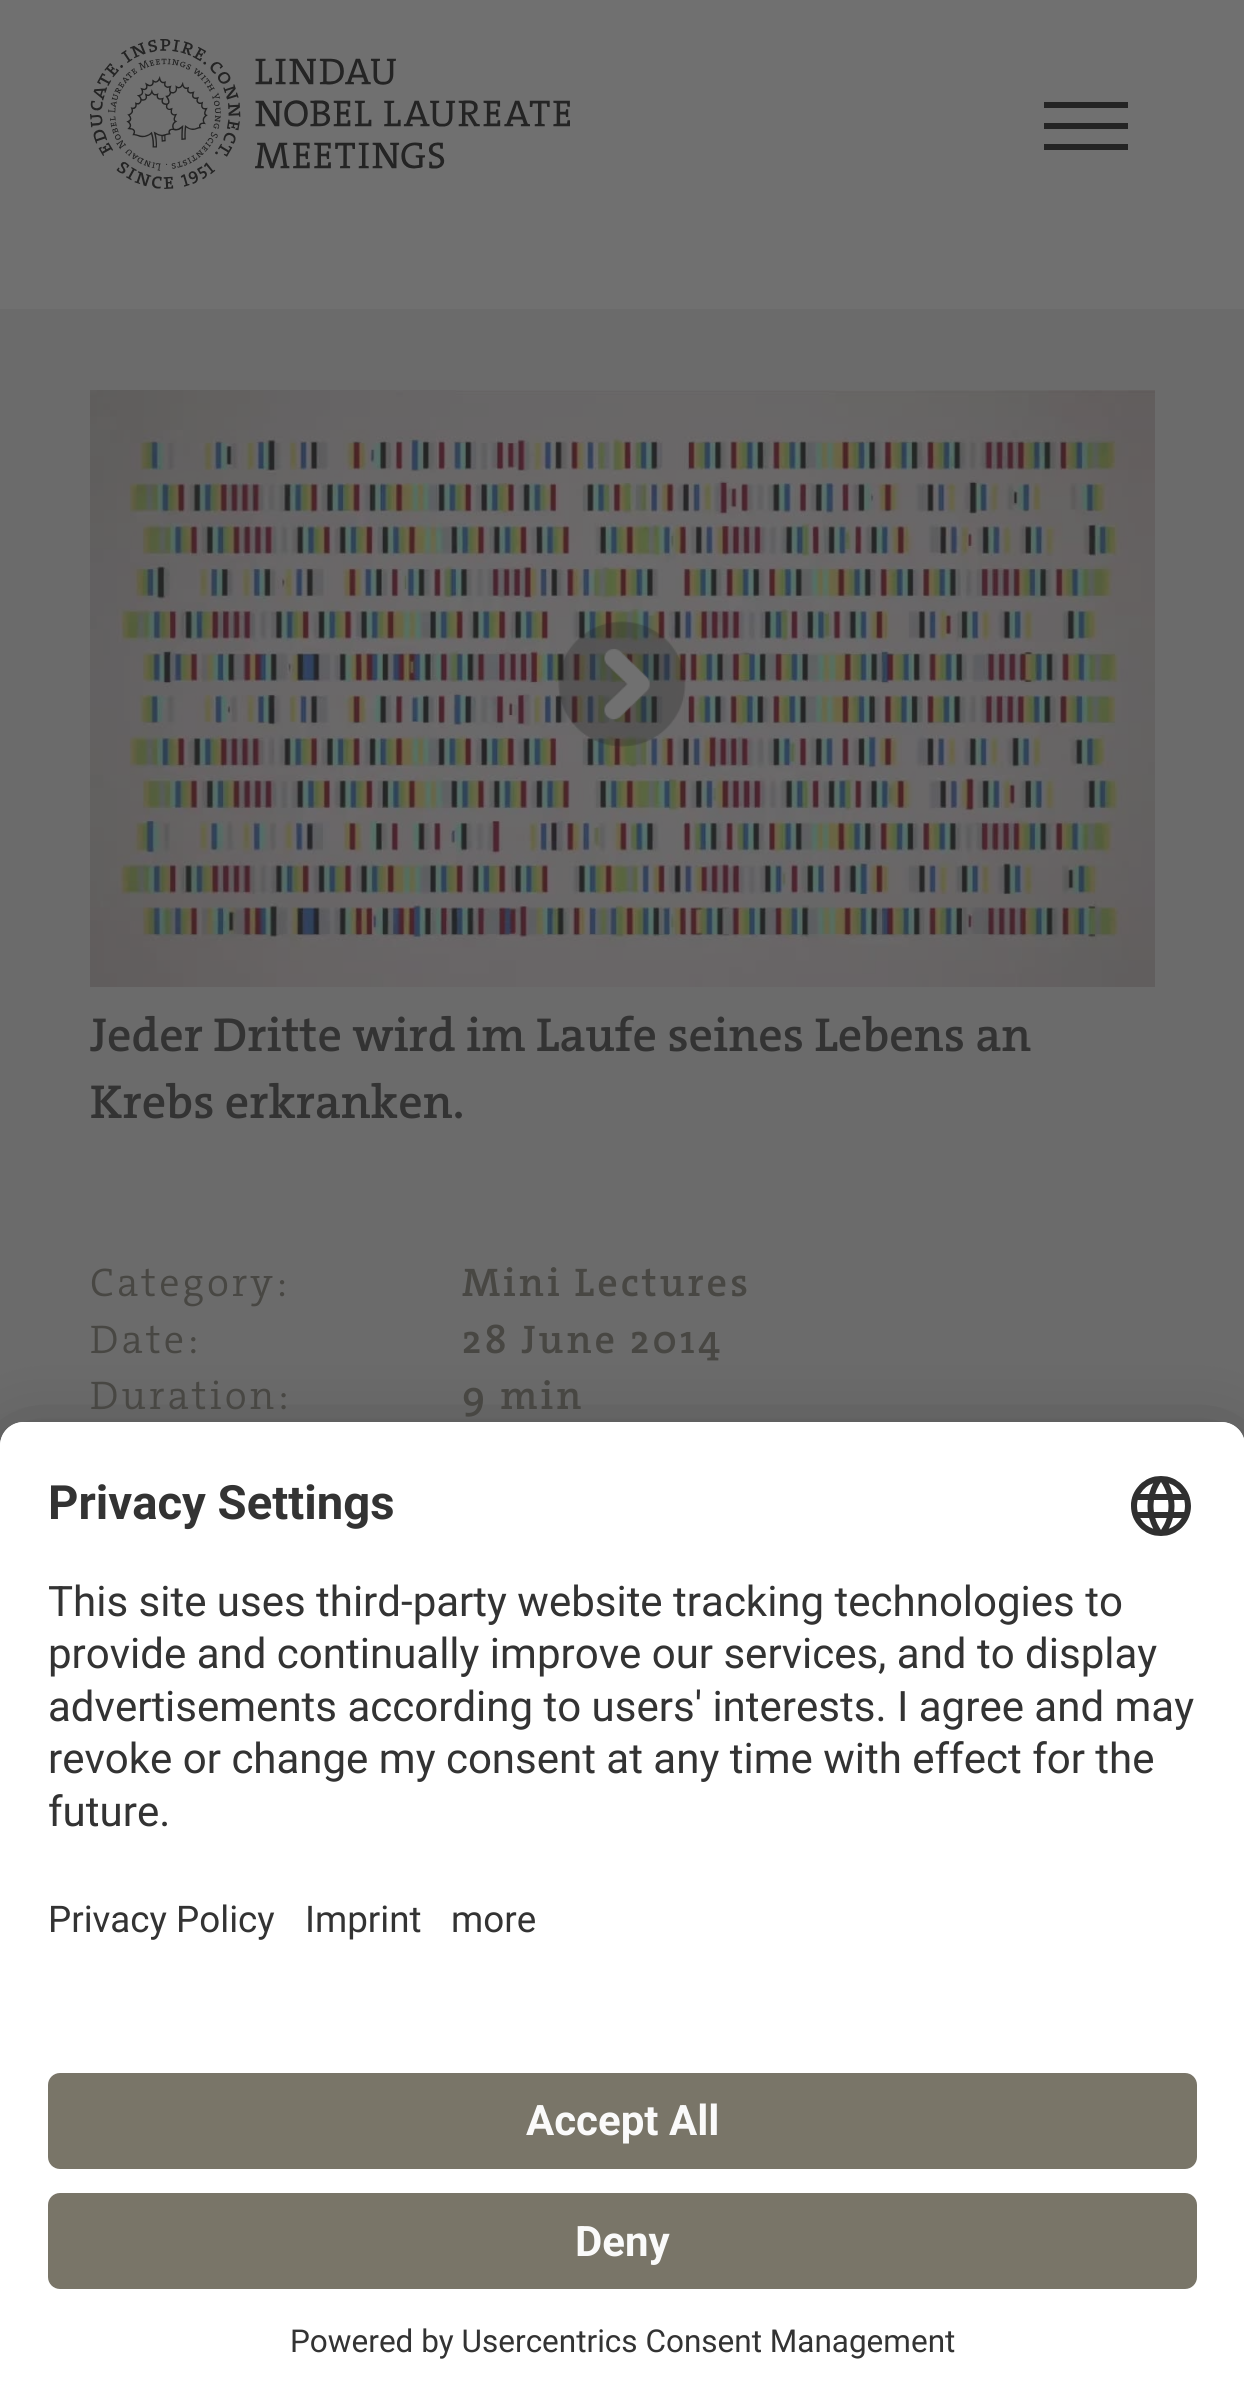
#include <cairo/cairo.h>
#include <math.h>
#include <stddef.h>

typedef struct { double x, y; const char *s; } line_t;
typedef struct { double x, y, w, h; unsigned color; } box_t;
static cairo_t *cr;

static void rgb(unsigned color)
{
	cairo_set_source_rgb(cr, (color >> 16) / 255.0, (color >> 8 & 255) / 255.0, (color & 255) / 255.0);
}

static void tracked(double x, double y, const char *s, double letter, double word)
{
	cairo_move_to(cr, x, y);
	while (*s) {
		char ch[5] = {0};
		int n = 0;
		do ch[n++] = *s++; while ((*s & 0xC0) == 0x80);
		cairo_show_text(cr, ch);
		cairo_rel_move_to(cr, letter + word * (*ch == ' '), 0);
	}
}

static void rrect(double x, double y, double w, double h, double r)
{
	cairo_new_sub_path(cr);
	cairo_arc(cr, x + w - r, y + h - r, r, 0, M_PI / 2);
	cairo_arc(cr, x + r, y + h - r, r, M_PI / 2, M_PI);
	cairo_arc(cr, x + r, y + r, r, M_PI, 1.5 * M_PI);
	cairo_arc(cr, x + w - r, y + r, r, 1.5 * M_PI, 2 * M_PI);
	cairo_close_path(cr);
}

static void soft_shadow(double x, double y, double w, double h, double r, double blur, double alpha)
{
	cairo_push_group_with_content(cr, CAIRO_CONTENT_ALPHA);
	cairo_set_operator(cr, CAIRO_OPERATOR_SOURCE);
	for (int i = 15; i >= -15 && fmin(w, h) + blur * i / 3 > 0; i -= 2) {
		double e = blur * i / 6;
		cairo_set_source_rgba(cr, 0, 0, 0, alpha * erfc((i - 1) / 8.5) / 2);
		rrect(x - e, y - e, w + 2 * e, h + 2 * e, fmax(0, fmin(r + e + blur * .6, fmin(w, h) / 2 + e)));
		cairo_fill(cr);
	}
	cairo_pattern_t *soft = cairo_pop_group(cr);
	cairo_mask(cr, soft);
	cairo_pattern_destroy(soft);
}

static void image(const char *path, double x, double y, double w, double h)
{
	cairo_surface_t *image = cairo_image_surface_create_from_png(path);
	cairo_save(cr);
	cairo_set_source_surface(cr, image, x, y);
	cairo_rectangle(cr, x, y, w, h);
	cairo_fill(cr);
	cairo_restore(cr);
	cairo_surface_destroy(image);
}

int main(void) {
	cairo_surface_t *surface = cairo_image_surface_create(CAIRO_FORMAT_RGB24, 1244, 2407);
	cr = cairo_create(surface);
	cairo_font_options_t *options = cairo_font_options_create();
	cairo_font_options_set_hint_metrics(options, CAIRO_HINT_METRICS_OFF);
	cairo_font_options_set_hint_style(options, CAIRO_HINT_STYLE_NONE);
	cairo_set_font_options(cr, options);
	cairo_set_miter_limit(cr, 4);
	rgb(0x707070);
	cairo_paint(cr);
	image("img/1.png", 90, 39, 480, 150);
	{
		static const box_t items[] = {
			{1044, 102, 84, 6, 0x242424},
			{1044, 123, 84, 6, 0x242424},
			{1044, 144, 84, 6, 0x242424},
			{0, 309, 1244, 1137, 0x6b6b6b},
		};
		for (size_t i = 0; i < sizeof items / sizeof *items; i++) {
			rgb(items[i].color);
			cairo_rectangle(cr, items[i].x, items[i].y, items[i].w, items[i].h);
			cairo_fill(cr);
		}
	}
	image("img/2.png", 90, 390, 1065, 597);
	image("img/3.png", 558, 621, 128, 126);
	rgb(0x000000);
	soft_shadow(0, 1482, 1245, 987, 24, 42, 0.3);
	soft_shadow(0, 1437, 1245, 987, 24, 39, 0.22);
	rgb(0xffffff);
	cairo_new_path(cr);
	cairo_move_to(cr, 24, 1422);
	cairo_line_to(cr, 1221, 1422);
	cairo_curve_to(cr, 1234.5, 1422, 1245, 1432.5, 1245, 1446);
	cairo_line_to(cr, 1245, 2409);
	cairo_line_to(cr, 0, 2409);
	cairo_line_to(cr, 0, 1446);
	cairo_curve_to(cr, 0, 1432.5, 10.5, 1422, 24, 1422);
	cairo_close_path(cr);
	cairo_fill(cr);
	cairo_new_path(cr);
	cairo_move_to(cr, 24, 1422);
	cairo_line_to(cr, 1221, 1422);
	cairo_curve_to(cr, 1234.5, 1422, 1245, 1432.5, 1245, 1446);
	cairo_line_to(cr, 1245, 2037);
	cairo_line_to(cr, 0, 2037);
	cairo_line_to(cr, 0, 1446);
	cairo_curve_to(cr, 0, 1432.5, 10.5, 1422, 24, 1422);
	cairo_close_path(cr);
	cairo_fill(cr);
	image("img/4.png", 1131, 1476, 60, 60);
	rgb(0x797568);
	rrect(48, 2073, 1149, 96, 12);
	cairo_fill(cr);
	rrect(48, 2193, 1149, 96, 12);
	cairo_fill(cr);
	cairo_select_font_face(cr, "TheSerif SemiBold", CAIRO_FONT_SLANT_NORMAL, CAIRO_FONT_WEIGHT_NORMAL);
	cairo_set_font_size(cr, 48);
	rgb(0x333333);
	cairo_move_to(cr, 90, 1051);
	cairo_show_text(cr, "Jeder Dritte wird im Laufe seines Lebens an");
	cairo_move_to(cr, 90, 1118);
	cairo_show_text(cr, "Krebs erkranken.");
	cairo_select_font_face(cr, "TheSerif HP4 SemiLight", CAIRO_FONT_SLANT_NORMAL, CAIRO_FONT_WEIGHT_NORMAL);
	cairo_set_font_size(cr, 40.25);
	rgb(0x484743);
	tracked(90, 1296, "Category:", 3, 0);
	cairo_select_font_face(cr, "TheSerif SemiBold", CAIRO_FONT_SLANT_NORMAL, CAIRO_FONT_WEIGHT_NORMAL);
	tracked(462, 1296, "Mini Lectures", 3, 0);
	cairo_select_font_face(cr, "TheSerif HP4 SemiLight", CAIRO_FONT_SLANT_NORMAL, CAIRO_FONT_WEIGHT_NORMAL);
	tracked(90, 1353, "Date:", 3, 0);
	cairo_select_font_face(cr, "TheSerif SemiBold", CAIRO_FONT_SLANT_NORMAL, CAIRO_FONT_WEIGHT_NORMAL);
	tracked(462, 1353, "28 June 2014", 3, 0);
	cairo_select_font_face(cr, "TheSerif HP4 SemiLight", CAIRO_FONT_SLANT_NORMAL, CAIRO_FONT_WEIGHT_NORMAL);
	tracked(90, 1409, "Duration:", 3, 0);
	cairo_select_font_face(cr, "TheSerif SemiBold", CAIRO_FONT_SLANT_NORMAL, CAIRO_FONT_WEIGHT_NORMAL);
	tracked(462, 1409, "9 min", 3, 0);
	cairo_select_font_face(cr, "Roboto", CAIRO_FONT_SLANT_NORMAL, CAIRO_FONT_WEIGHT_BOLD);
	cairo_set_font_size(cr, 47.25);
	rgb(0x333333);
	cairo_move_to(cr, 48, 1519);
	cairo_show_text(cr, "Privacy Settings");
	cairo_select_font_face(cr, "Roboto", CAIRO_FONT_SLANT_NORMAL, CAIRO_FONT_WEIGHT_NORMAL);
	cairo_set_font_size(cr, 42);
	{
		static const line_t items[] = {
			{48, 1616, "This site uses third-party website tracking technologies to"},
			{48, 1668, "provide and continually improve our services, and to display"},
			{48, 1721, "advertisements according to users' interests. I agree and may"},
			{48, 1773, "revoke or change my consent at any time with effect for the"},
			{48, 1826, "future."},
		};
		for (size_t i = 0; i < sizeof items / sizeof *items; i++) {
			cairo_move_to(cr, items[i].x, items[i].y);
			cairo_show_text(cr, items[i].s);
		}
	}
	cairo_set_font_size(cr, 36.75);
	{
		static const line_t items[] = {
			{48, 1932, "Privacy Policy"},
			{305, 1932, "Imprint"},
			{451, 1932, "more"},
		};
		for (size_t i = 0; i < sizeof items / sizeof *items; i++) {
			cairo_move_to(cr, items[i].x, items[i].y);
			cairo_show_text(cr, items[i].s);
		}
	}
	cairo_select_font_face(cr, "Roboto", CAIRO_FONT_SLANT_NORMAL, CAIRO_FONT_WEIGHT_BOLD);
	cairo_set_font_size(cr, 42);
	rgb(0xfafafa);
	cairo_move_to(cr, 526, 2135);
	cairo_show_text(cr, "Accept All");
	cairo_move_to(cr, 575, 2256);
	cairo_show_text(cr, "Deny");
	cairo_select_font_face(cr, "Roboto", CAIRO_FONT_SLANT_NORMAL, CAIRO_FONT_WEIGHT_NORMAL);
	cairo_set_font_size(cr, 31.5);
	rgb(0x333333);
	cairo_move_to(cr, 290, 2352);
	cairo_show_text(cr, "Powered by Usercentrics Consent Management");
	cairo_surface_write_to_png(surface, "page.png");
	cairo_font_options_destroy(options);
	cairo_destroy(cr);
	cairo_surface_destroy(surface);
	return 0;
}
